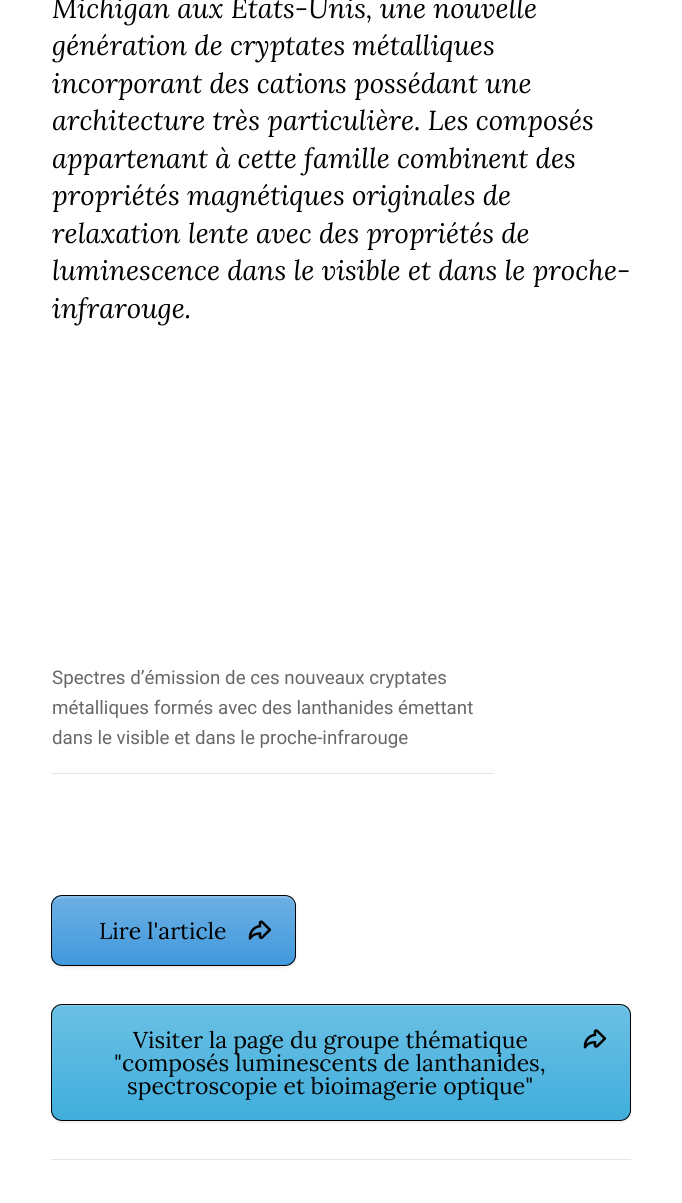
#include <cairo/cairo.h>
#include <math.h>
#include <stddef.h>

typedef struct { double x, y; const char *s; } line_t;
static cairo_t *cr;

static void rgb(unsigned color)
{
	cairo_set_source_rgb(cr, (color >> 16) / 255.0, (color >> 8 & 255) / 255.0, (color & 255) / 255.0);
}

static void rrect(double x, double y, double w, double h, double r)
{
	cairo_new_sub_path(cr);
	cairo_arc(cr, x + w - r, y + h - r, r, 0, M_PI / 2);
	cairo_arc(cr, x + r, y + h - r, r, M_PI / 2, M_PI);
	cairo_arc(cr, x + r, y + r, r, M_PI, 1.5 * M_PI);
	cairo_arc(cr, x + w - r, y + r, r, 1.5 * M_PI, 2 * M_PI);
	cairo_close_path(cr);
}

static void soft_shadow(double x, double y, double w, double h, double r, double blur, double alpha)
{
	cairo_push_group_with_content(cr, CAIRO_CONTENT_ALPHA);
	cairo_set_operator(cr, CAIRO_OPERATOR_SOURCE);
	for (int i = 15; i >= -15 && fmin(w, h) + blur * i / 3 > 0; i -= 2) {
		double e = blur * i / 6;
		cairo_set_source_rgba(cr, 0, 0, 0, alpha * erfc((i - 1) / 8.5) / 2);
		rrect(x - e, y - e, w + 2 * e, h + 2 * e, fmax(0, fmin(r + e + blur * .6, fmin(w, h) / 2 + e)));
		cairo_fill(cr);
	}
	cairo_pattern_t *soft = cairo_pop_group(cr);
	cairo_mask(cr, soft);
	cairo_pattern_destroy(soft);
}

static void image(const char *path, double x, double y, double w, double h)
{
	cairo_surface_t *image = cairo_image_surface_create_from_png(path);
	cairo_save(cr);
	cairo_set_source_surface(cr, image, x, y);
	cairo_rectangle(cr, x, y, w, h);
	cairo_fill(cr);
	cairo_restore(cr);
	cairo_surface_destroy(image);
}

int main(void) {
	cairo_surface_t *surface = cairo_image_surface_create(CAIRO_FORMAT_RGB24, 682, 1203);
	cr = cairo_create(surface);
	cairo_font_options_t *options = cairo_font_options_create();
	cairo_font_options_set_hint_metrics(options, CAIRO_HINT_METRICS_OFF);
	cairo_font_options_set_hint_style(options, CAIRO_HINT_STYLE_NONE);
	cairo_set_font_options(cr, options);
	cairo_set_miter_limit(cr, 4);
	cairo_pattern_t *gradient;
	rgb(0xffffff);
	cairo_paint(cr);
	rgb(0xe6e6e6);
	cairo_rectangle(cr, 51, 773, 443, 1);
	cairo_fill(cr);
	rgb(0x000000);
	soft_shadow(51, 896, 245, 72, 11, 1, 0.07);
	cairo_save(cr);
	rrect(51, 895, 245, 71, 11);
	cairo_clip(cr);
	gradient = cairo_pattern_create_linear(53, 965, 53, 896);
	cairo_pattern_add_color_stop_rgba(gradient, 0, 0.255, 0.6, 0.863, 1);
	cairo_pattern_add_color_stop_rgba(gradient, 1, 0.424, 0.69, 0.894, 1);
	cairo_set_source(cr, gradient);
	cairo_pattern_destroy(gradient);
	cairo_rectangle(cr, 51, 896, 245, 69);
	cairo_fill(cr);
	cairo_restore(cr);
	cairo_set_source_rgba(cr, 1, 1, 1, 0.2);
	cairo_new_path(cr);
	cairo_move_to(cr, 63, 898);
	cairo_line_to(cr, 285, 898);
	cairo_curve_to(cr, 290, 898, 295, 902, 295, 908);
	cairo_line_to(cr, 295, 906);
	cairo_curve_to(cr, 295, 900, 291, 896, 285, 896);
	cairo_line_to(cr, 63, 896);
	cairo_curve_to(cr, 59, 896, 55, 899, 54, 903);
	cairo_curve_to(cr, 56, 900, 59, 898, 63, 898);
	cairo_close_path(cr);
	cairo_fill(cr);
	rrect(51.5, 895.5, 244, 70, 10.5);
	rgb(0x020202);
	cairo_set_line_width(cr, 1);
	cairo_stroke(cr);
	image("img/1.png", 248, 920, 24, 20);
	rgb(0x000000);
	soft_shadow(51, 1005, 580, 118, 11, 1, 0.07);
	cairo_save(cr);
	rrect(51, 1004, 580, 117, 11);
	cairo_clip(cr);
	gradient = cairo_pattern_create_linear(53, 1120, 53, 1005);
	cairo_pattern_add_color_stop_rgba(gradient, 0, 0.251, 0.682, 0.863, 1);
	cairo_pattern_add_color_stop_rgba(gradient, 1, 0.42, 0.753, 0.894, 1);
	cairo_set_source(cr, gradient);
	cairo_pattern_destroy(gradient);
	cairo_rectangle(cr, 51, 1005, 580, 115);
	cairo_fill(cr);
	cairo_restore(cr);
	cairo_set_source_rgba(cr, 1, 1, 1, 0.2);
	cairo_new_path(cr);
	cairo_move_to(cr, 63, 1006);
	cairo_line_to(cr, 620, 1006);
	cairo_curve_to(cr, 625, 1006, 630, 1011, 630, 1016);
	cairo_line_to(cr, 630, 1015);
	cairo_curve_to(cr, 630, 1009, 626, 1005, 620, 1005);
	cairo_line_to(cr, 63, 1005);
	cairo_curve_to(cr, 59, 1005, 56, 1007, 54, 1010);
	cairo_curve_to(cr, 56, 1008, 59, 1006, 63, 1006);
	cairo_close_path(cr);
	cairo_fill(cr);
	rrect(51.5, 1004.5, 579, 116, 10.5);
	rgb(0x020202);
	cairo_stroke(cr);
	image("img/2.png", 583, 1029, 24, 20);
	rgb(0xe6e6e6);
	cairo_rectangle(cr, 51, 1159, 580, 1);
	cairo_fill(cr);
	cairo_select_font_face(cr, "Lora", CAIRO_FONT_SLANT_ITALIC, CAIRO_FONT_WEIGHT_NORMAL);
	cairo_set_font_size(cr, 27.5);
	rgb(0x000000);
	{
		static const line_t items[] = {
			{52, 18, "Michigan aux Etats-Unis, une nouvelle"},
			{52, 55, "génération de cryptates métalliques"},
			{52, 93, "incorporant des cations possédant une"},
			{52, 130, "architecture très particulière. Les composés"},
			{52, 168, "appartenant à cette famille combinent des"},
			{52, 205, "propriétés magnétiques originales de"},
			{52, 243, "relaxation lente avec des propriétés de"},
			{52, 280, "luminescence dans le visible et dans le proche-"},
			{52, 318, "infrarouge."},
		};
		for (size_t i = 0; i < sizeof items / sizeof *items; i++) {
			cairo_move_to(cr, items[i].x, items[i].y);
			cairo_show_text(cr, items[i].s);
		}
	}
	cairo_select_font_face(cr, "Roboto", CAIRO_FONT_SLANT_NORMAL, CAIRO_FONT_WEIGHT_NORMAL);
	cairo_set_font_size(cr, 18.75);
	rgb(0x686868);
	{
		static const line_t items[] = {
			{52, 684, "Spectres d’émission de ces nouveaux cryptates"},
			{52, 714, "métalliques formés avec des lanthanides émettant"},
			{52, 744, "dans le visible et dans le proche-infrarouge"},
		};
		for (size_t i = 0; i < sizeof items / sizeof *items; i++) {
			cairo_move_to(cr, items[i].x, items[i].y);
			cairo_show_text(cr, items[i].s);
		}
	}
	cairo_select_font_face(cr, "Lora", CAIRO_FONT_SLANT_NORMAL, CAIRO_FONT_WEIGHT_NORMAL);
	cairo_set_font_size(cr, 23);
	rgb(0x000000);
	{
		static const line_t items[] = {
			{99, 939, "Lire l'article"},
			{133, 1048, "Visiter la page du groupe thématique"},
			{114, 1071, "\"composés luminescents de lanthanides,"},
			{127, 1094, "spectroscopie et bioimagerie optique\""},
		};
		for (size_t i = 0; i < sizeof items / sizeof *items; i++) {
			cairo_move_to(cr, items[i].x, items[i].y);
			cairo_show_text(cr, items[i].s);
		}
	}
	cairo_surface_write_to_png(surface, "page.png");
	cairo_font_options_destroy(options);
	cairo_destroy(cr);
	cairo_surface_destroy(surface);
	return 0;
}
